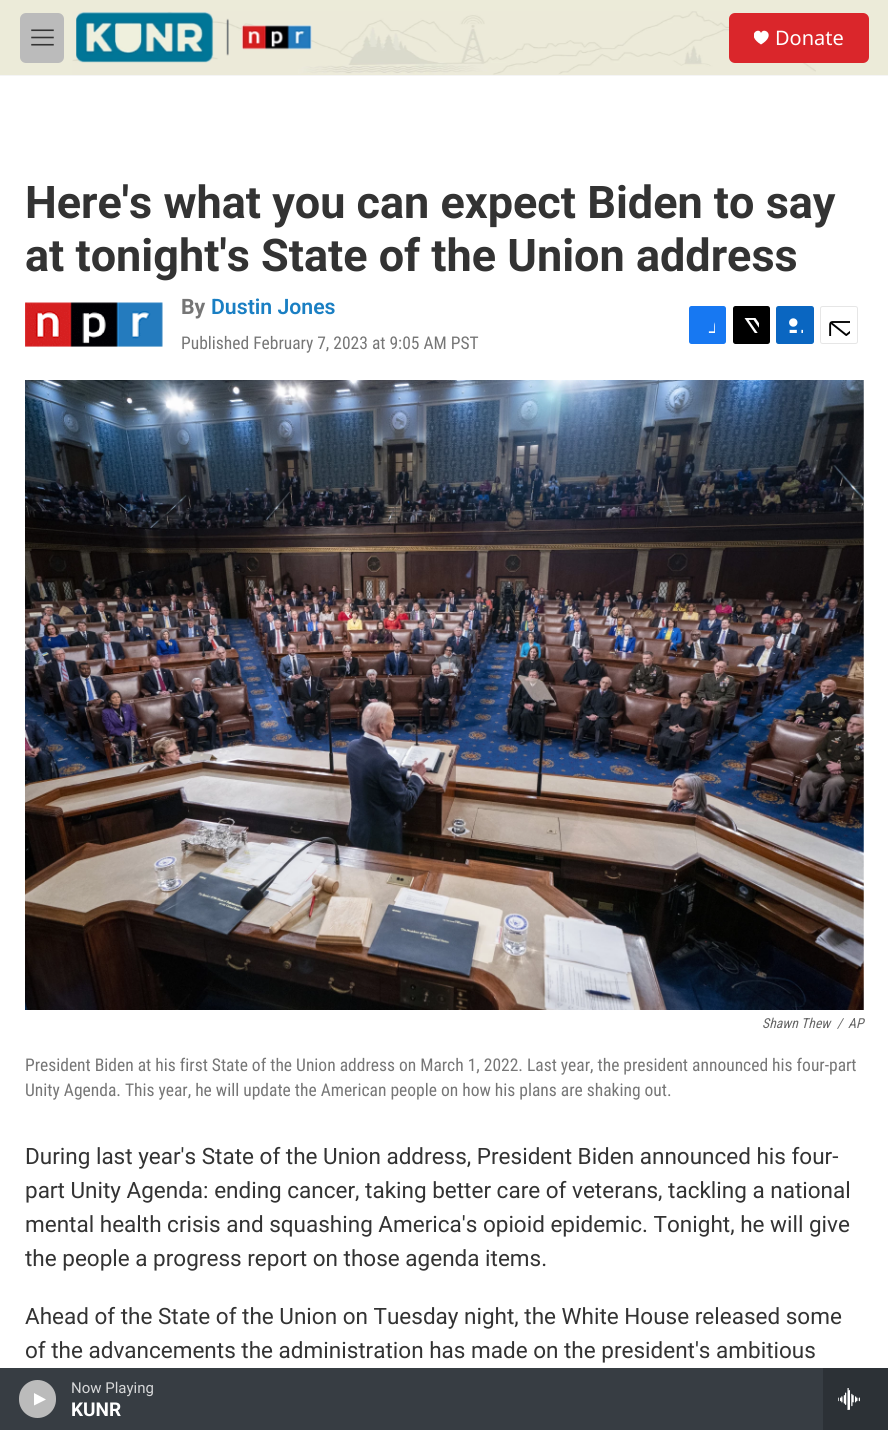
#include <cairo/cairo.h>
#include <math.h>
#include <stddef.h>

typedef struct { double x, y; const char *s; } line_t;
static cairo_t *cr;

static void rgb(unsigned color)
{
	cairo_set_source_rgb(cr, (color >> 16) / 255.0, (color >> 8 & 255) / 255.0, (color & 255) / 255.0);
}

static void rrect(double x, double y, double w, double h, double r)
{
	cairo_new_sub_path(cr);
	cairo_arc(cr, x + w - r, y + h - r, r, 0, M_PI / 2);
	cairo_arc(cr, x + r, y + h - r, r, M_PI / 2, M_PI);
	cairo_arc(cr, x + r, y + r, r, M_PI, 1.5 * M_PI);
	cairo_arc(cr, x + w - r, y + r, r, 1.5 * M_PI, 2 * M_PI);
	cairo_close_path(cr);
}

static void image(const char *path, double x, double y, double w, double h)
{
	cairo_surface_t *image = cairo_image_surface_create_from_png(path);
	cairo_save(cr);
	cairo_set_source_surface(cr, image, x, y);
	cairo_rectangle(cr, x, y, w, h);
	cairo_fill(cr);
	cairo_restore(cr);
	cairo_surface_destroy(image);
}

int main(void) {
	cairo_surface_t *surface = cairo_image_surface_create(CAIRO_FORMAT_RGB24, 888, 1430);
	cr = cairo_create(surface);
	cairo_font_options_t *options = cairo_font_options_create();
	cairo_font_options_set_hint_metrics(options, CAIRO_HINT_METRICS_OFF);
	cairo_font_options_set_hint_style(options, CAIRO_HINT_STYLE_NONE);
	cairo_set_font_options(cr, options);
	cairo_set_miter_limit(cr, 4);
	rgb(0xffffff);
	cairo_paint(cr);
	rgb(0xecebd9);
	cairo_rectangle(cr, 0, 0, 888, 75);
	cairo_fill(cr);
	rgb(0xf5f5f5);
	cairo_rectangle(cr, 0, 75, 888, 1);
	cairo_fill(cr);
	image("img/1.png", 72, 11, 744, 64);
	rgb(0xbbbbbb);
	rrect(20, 13, 44, 50, 6);
	cairo_fill(cr);
	image("img/2.png", 31, 29, 23, 17);
	image("img/3.png", 76, 12, 236, 51);
	rgb(0xda262b);
	rrect(729, 13, 140, 50, 6);
	cairo_fill(cr);
	cairo_save(cr);
	cairo_rectangle(cr, 754, 30, 15, 15);
	cairo_clip(cr);
	rgb(0xffffff);
	cairo_new_path(cr);
	cairo_move_to(cr, 761, 33);
	cairo_curve_to(cr, 759, 26.5, 745.5, 35, 761, 44.5);
	cairo_curve_to(cr, 777, 35, 763.5, 26.5, 761, 33);
	cairo_close_path(cr);
	cairo_fill(cr);
	cairo_restore(cr);
	rgb(0x373d43);
	cairo_rectangle(cr, 0, 1368, 823, 62);
	cairo_fill(cr);
	rgb(0xbbbbbb);
	rrect(19, 1380, 37, 38, 18.5);
	cairo_fill(cr);
	rgb(0xffffff);
	cairo_new_path(cr);
	cairo_move_to(cr, 34, 1393);
	cairo_line_to(cr, 46, 1399.5);
	cairo_line_to(cr, 34, 1405.5);
	cairo_close_path(cr);
	cairo_fill(cr);
	rgb(0x2c3136);
	cairo_rectangle(cr, 823, 1368, 65, 62);
	cairo_fill(cr);
	image("img/4.png", 838, 1388, 22, 22);
	image("img/5.png", 25, 302, 138, 46);
	rgb(0x1778f2);
	rrect(689, 306, 37, 38, 2.5);
	cairo_fill(cr);
	image("img/6.png", 708, 322, 7, 11);
	rgb(0x000000);
	rrect(733, 306, 37, 38, 2.5);
	cairo_fill(cr);
	image("img/7.png", 744, 318, 15, 15);
	rgb(0x0a66c1);
	rrect(776, 306, 38, 38, 2.5);
	cairo_fill(cr);
	image("img/8.png", 789, 318, 14, 15);
	rrect(820.5, 306.5, 37, 37, 2);
	rgb(0xe6e6e6);
	cairo_set_line_width(cr, 1);
	cairo_stroke(cr);
	image("img/9.png", 829, 321, 21, 15);
	image("img/10.png", 25, 380, 839, 630);
	cairo_select_font_face(cr, "Noto Sans", CAIRO_FONT_SLANT_NORMAL, CAIRO_FONT_WEIGHT_NORMAL);
	cairo_set_font_size(cr, 20);
	rgb(0xffffff);
	cairo_move_to(cr, 775, 45);
	cairo_show_text(cr, "Donate");
	cairo_select_font_face(cr, "Roboto", CAIRO_FONT_SLANT_NORMAL, CAIRO_FONT_WEIGHT_NORMAL);
	cairo_set_font_size(cr, 15);
	rgb(0xd7d8d9);
	cairo_move_to(cr, 71, 1393);
	cairo_show_text(cr, "Now Playing");
	cairo_select_font_face(cr, "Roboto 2", CAIRO_FONT_SLANT_NORMAL, CAIRO_FONT_WEIGHT_BOLD);
	cairo_set_font_size(cr, 19);
	rgb(0xffffff);
	cairo_move_to(cr, 71, 1416);
	cairo_show_text(cr, "KUNR");
	cairo_select_font_face(cr, "Roboto", CAIRO_FONT_SLANT_NORMAL, CAIRO_FONT_WEIGHT_BOLD);
	cairo_set_font_size(cr, 45);
	rgb(0x333333);
	cairo_move_to(cr, 25, 218);
	cairo_show_text(cr, "Here's what you can expect Biden to say");
	cairo_move_to(cr, 25, 271);
	cairo_show_text(cr, "at tonight's State of the Union address");
	cairo_set_font_size(cr, 21.25);
	rgb(0x767676);
	cairo_move_to(cr, 181, 314);
	cairo_show_text(cr, "By");
	cairo_select_font_face(cr, "Roboto SemiBold", CAIRO_FONT_SLANT_NORMAL, CAIRO_FONT_WEIGHT_NORMAL);
	rgb(0x1a7fc3);
	cairo_move_to(cr, 211, 314);
	cairo_show_text(cr, "Dustin Jones");
	cairo_select_font_face(cr, "Roboto Condensed", CAIRO_FONT_SLANT_NORMAL, CAIRO_FONT_WEIGHT_NORMAL);
	cairo_set_font_size(cr, 17.5);
	rgb(0x767676);
	cairo_move_to(cr, 181, 349);
	cairo_show_text(cr, "Published February 7, 2023 at 9:05 AM PST");
	cairo_select_font_face(cr, "Roboto Condensed", CAIRO_FONT_SLANT_ITALIC, CAIRO_FONT_WEIGHT_NORMAL);
	cairo_set_font_size(cr, 13.75);
	rgb(0x666666);
	{
		static const line_t items[] = {
			{762, 1028, "Shawn Thew"},
			{837, 1028, "/"},
			{848, 1028, "AP"},
		};
		for (size_t i = 0; i < sizeof items / sizeof *items; i++) {
			cairo_move_to(cr, items[i].x, items[i].y);
			cairo_show_text(cr, items[i].s);
		}
	}
	cairo_select_font_face(cr, "Roboto Condensed", CAIRO_FONT_SLANT_NORMAL, CAIRO_FONT_WEIGHT_NORMAL);
	cairo_set_font_size(cr, 17.5);
	rgb(0x767676);
	cairo_move_to(cr, 25, 1071);
	cairo_show_text(cr, "President Biden at his first State of the Union address on March 1, 2022. Last year, the president announced his four-part");
	cairo_move_to(cr, 25, 1096);
	cairo_show_text(cr, "Unity Agenda. This year, he will update the American people on how his plans are shaking out.");
	cairo_select_font_face(cr, "Roboto", CAIRO_FONT_SLANT_NORMAL, CAIRO_FONT_WEIGHT_NORMAL);
	cairo_set_font_size(cr, 22.5);
	rgb(0x333333);
	{
		static const line_t items[] = {
			{25, 1164, "During last year's State of the Union address, President Biden announced his four-"},
			{25, 1198, "part Unity Agenda: ending cancer, taking better care of veterans, tackling a national"},
			{25, 1232, "mental health crisis and squashing America's opioid epidemic. Tonight, he will give"},
			{25, 1266, "the people a progress report on those agenda items."},
			{25, 1324, "Ahead of the State of the Union on Tuesday night, the White House released some"},
			{25, 1358, "of the advancements the administration has made on the president's ambitious"},
		};
		for (size_t i = 0; i < sizeof items / sizeof *items; i++) {
			cairo_move_to(cr, items[i].x, items[i].y);
			cairo_show_text(cr, items[i].s);
		}
	}
	cairo_surface_write_to_png(surface, "page.png");
	cairo_font_options_destroy(options);
	cairo_destroy(cr);
	cairo_surface_destroy(surface);
	return 0;
}
